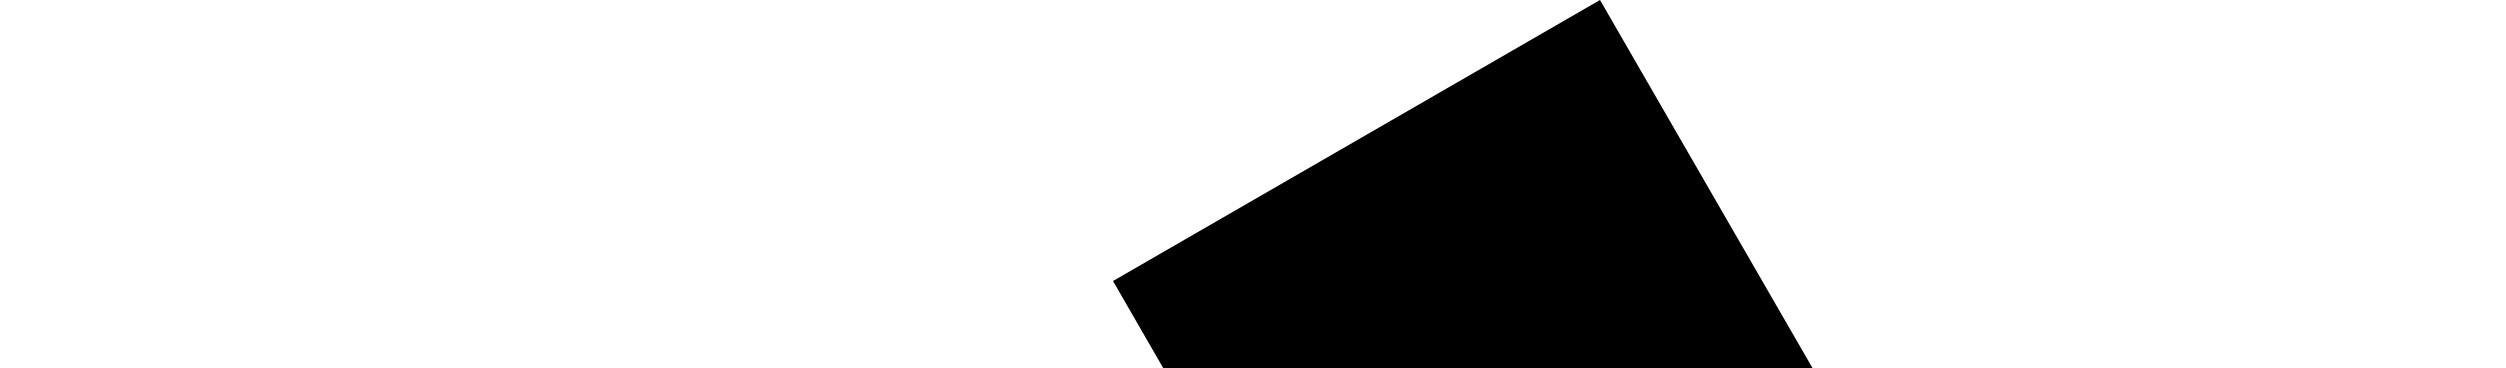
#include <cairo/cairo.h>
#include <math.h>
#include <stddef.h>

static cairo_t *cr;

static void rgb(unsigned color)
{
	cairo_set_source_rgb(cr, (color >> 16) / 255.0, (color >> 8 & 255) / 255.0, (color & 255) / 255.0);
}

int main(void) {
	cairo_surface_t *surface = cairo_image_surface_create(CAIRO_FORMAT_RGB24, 2506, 368);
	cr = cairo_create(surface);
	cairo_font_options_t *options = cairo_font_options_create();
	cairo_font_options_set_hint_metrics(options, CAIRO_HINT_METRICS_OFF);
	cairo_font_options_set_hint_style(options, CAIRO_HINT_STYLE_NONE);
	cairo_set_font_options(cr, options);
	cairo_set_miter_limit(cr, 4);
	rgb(0xffffff);
	cairo_paint(cr);
	rgb(0x000000);
	cairo_set_fill_rule(cr, CAIRO_FILL_RULE_EVEN_ODD);
	cairo_new_path(cr);
	cairo_move_to(cr, 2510, 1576);
	cairo_line_to(cr, 1600, 0);
	cairo_line_to(cr, 1113, 281);
	cairo_line_to(cr, 1860, 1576);
	cairo_close_path(cr);
	cairo_move_to(cr, 1643, 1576);
	cairo_line_to(cr, 1042, 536);
	cairo_line_to(cr, 555, 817);
	cairo_line_to(cr, 994, 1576);
	cairo_close_path(cr);
	cairo_move_to(cr, 487, 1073);
	cairo_line_to(cr, 777, 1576);
	cairo_line_to(cr, 128, 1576);
	cairo_line_to(cr, 0, 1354);
	cairo_close_path(cr);
	cairo_fill(cr);
	cairo_surface_write_to_png(surface, "page.png");
	cairo_font_options_destroy(options);
	cairo_destroy(cr);
	cairo_surface_destroy(surface);
	return 0;
}
